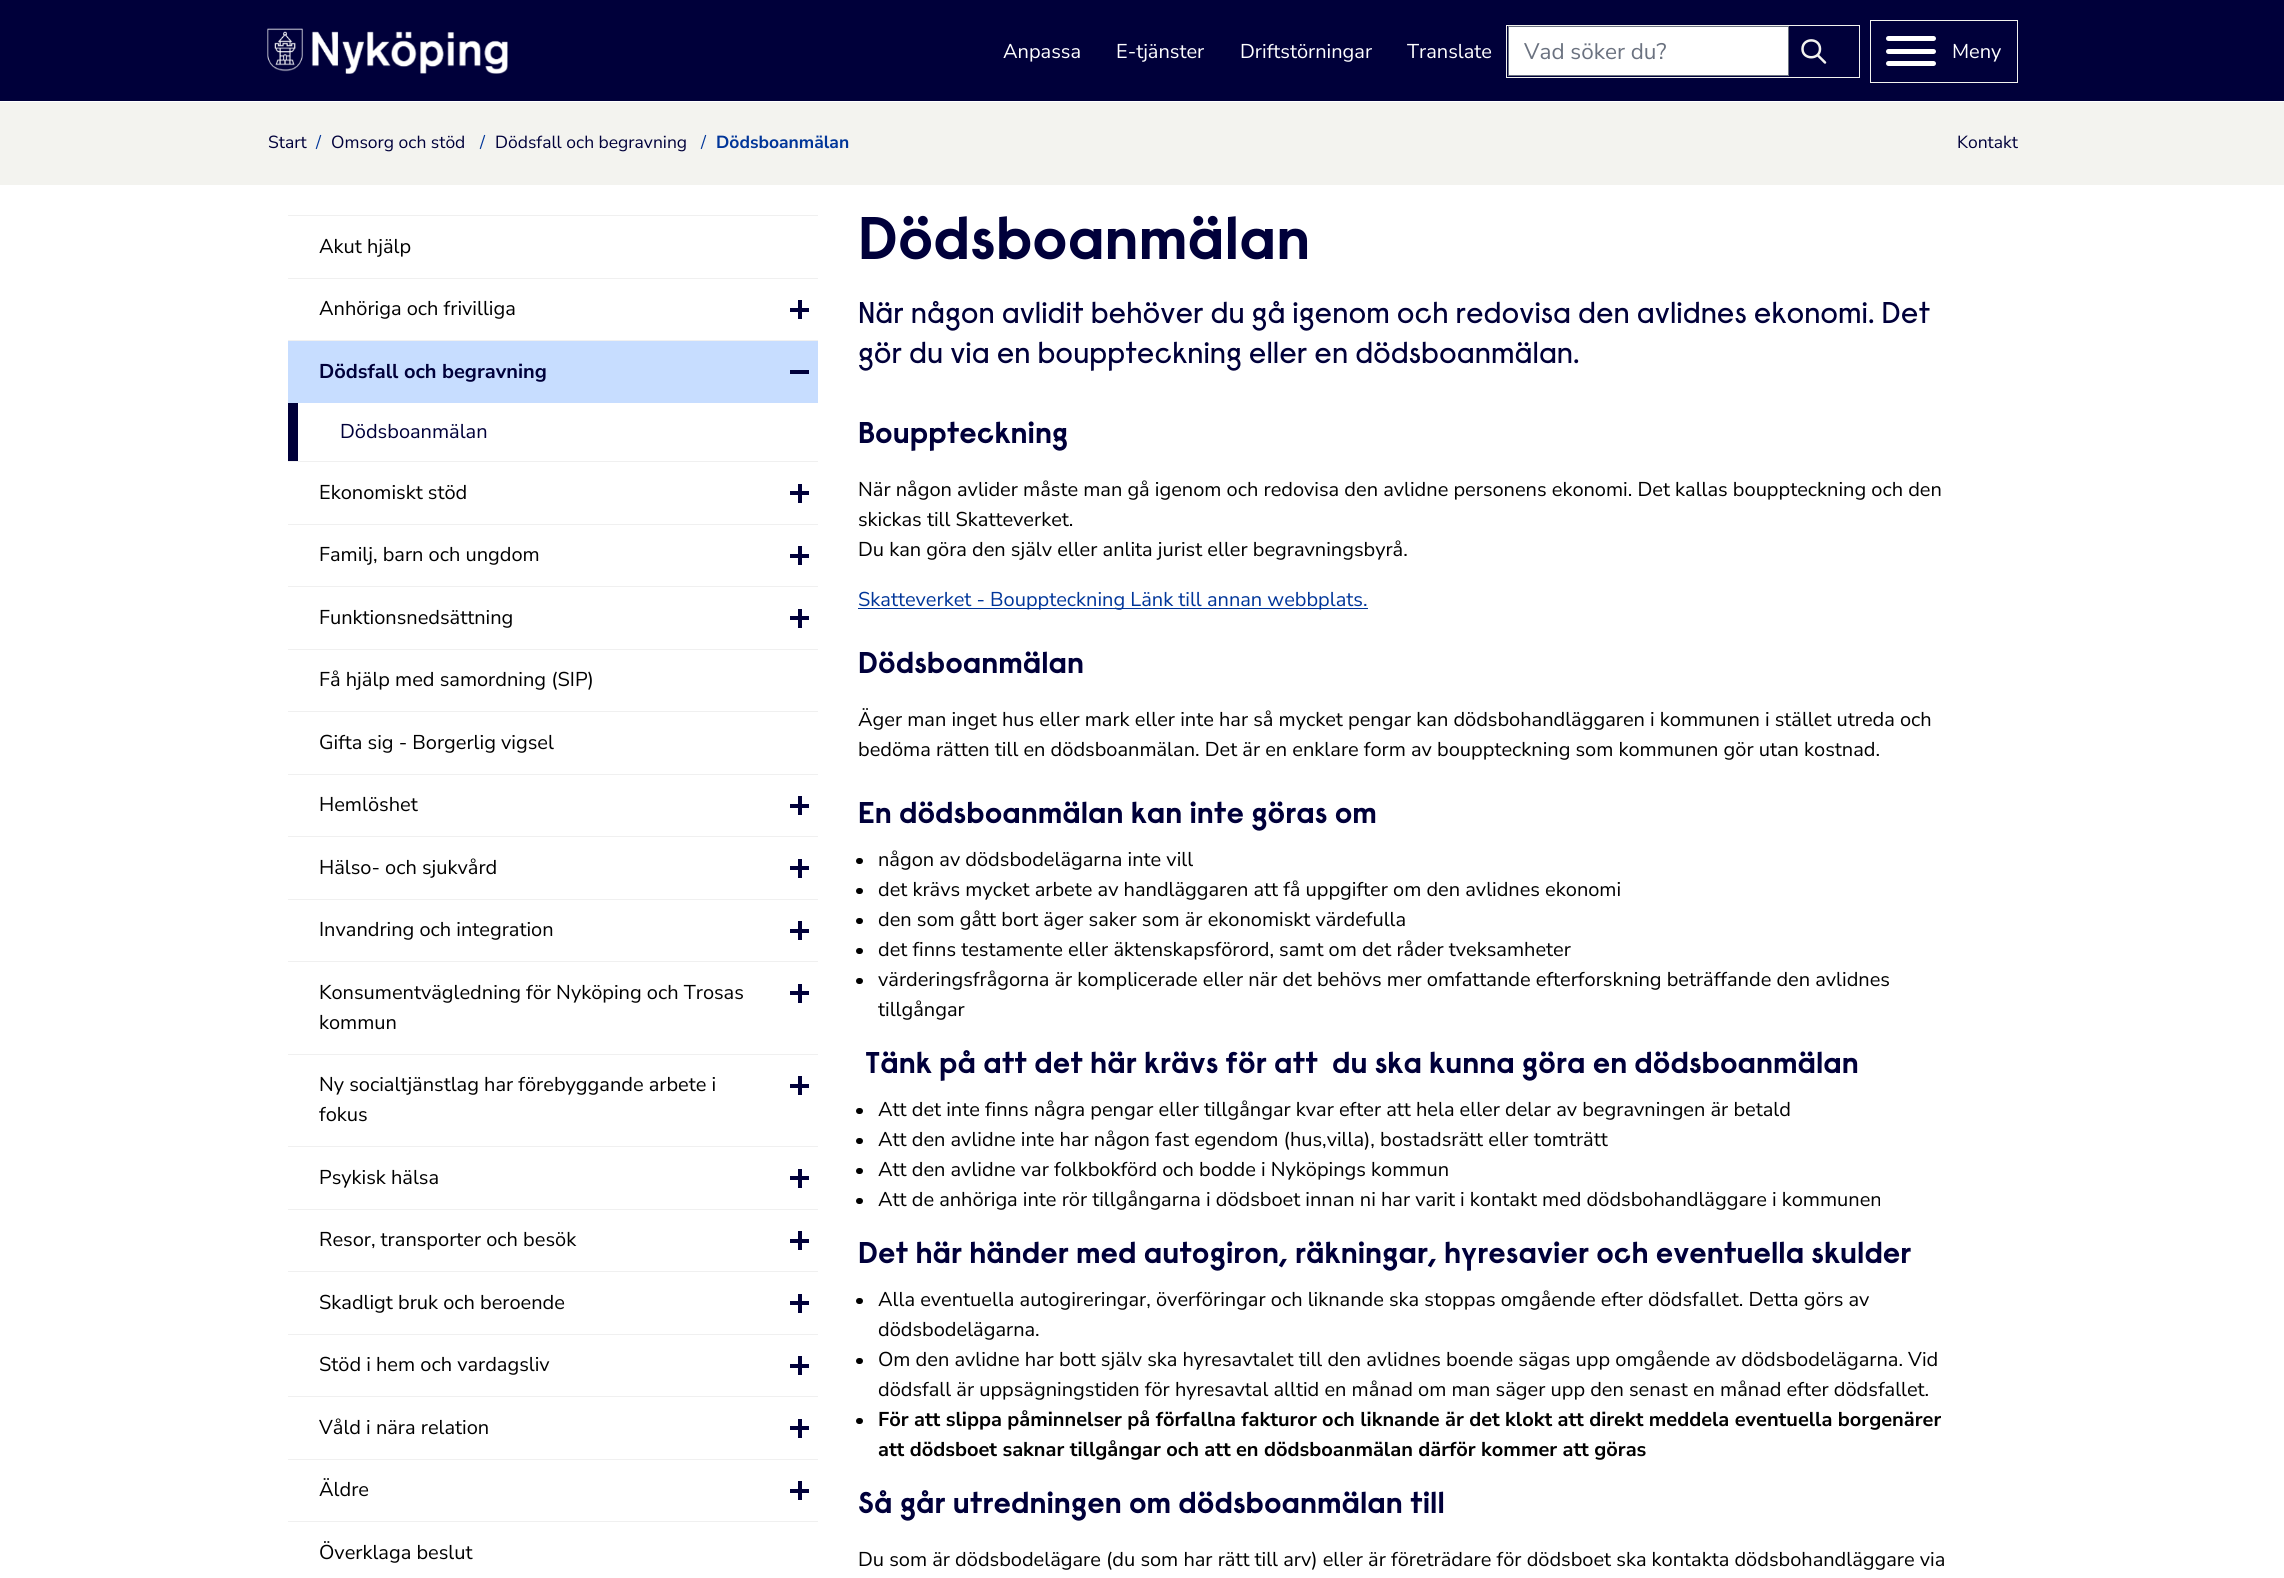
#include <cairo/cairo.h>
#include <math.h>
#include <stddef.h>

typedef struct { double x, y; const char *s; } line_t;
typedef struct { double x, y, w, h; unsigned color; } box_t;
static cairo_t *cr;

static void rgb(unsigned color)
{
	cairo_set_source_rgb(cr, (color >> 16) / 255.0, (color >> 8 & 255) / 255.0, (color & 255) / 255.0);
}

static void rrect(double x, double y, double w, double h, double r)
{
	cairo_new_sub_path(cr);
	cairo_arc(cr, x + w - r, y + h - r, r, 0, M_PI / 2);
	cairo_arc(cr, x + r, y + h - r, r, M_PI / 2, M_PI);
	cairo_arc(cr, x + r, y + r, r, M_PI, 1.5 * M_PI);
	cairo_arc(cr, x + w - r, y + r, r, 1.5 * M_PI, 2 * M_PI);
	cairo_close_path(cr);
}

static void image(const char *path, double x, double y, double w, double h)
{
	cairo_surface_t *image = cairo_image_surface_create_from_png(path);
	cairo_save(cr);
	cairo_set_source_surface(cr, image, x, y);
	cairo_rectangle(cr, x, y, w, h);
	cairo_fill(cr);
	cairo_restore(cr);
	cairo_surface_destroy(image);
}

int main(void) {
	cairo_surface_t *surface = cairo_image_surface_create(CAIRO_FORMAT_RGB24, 2284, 1578);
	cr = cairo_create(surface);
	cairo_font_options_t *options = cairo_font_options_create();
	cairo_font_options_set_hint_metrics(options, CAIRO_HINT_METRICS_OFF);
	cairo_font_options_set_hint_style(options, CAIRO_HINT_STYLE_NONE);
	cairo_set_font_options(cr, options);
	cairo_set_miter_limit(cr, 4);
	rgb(0xffffff);
	cairo_paint(cr);
	rgb(0x00003a);
	cairo_rectangle(cr, 0, 0, 2284, 101);
	cairo_fill(cr);
	image("img/1.png", 267, 28, 241, 46);
	cairo_rectangle(cr, 1506.5, 25.5, 353, 52);
	rgb(0xf3f3ef);
	cairo_set_line_width(cr, 1);
	cairo_stroke(cr);
	rgb(0xffffff);
	cairo_rectangle(cr, 1508.5, 26.5, 280, 49);
	cairo_fill_preserve(cr);
	rgb(0x6b7280);
	cairo_stroke(cr);
	cairo_new_path(cr);
	cairo_move_to(cr, 1825, 62.5);
	cairo_line_to(cr, 1817.5, 55);
	cairo_move_to(cr, 1820, 49);
	cairo_curve_to(cr, 1820, 60, 1802.5, 60, 1802.5, 49);
	cairo_curve_to(cr, 1802.5, 37.5, 1820, 37.5, 1820, 49);
	cairo_close_path(cr);
	rgb(0xf3f3ef);
	cairo_set_line_width(cr, 2.5);
	cairo_set_line_cap(cr, CAIRO_LINE_CAP_ROUND);
	cairo_set_line_join(cr, CAIRO_LINE_JOIN_ROUND);
	cairo_stroke(cr);
	cairo_rectangle(cr, 1870.5, 20.5, 147, 62);
	cairo_set_line_width(cr, 1);
	cairo_set_line_cap(cr, CAIRO_LINE_CAP_BUTT);
	cairo_set_line_join(cr, CAIRO_LINE_JOIN_MITER);
	cairo_stroke(cr);
	rgb(0xffffff);
	rrect(1886, 49, 50, 5, 2.5);
	cairo_fill(cr);
	rrect(1886, 36, 50, 5, 2.5);
	cairo_fill(cr);
	rrect(1886, 61, 50, 5, 2.5);
	cairo_fill(cr);
	{
		static const box_t items[] = {
			{0, 102, 2284, 83, 0xf3f3ef},
			{288, 215, 530, 1, 0xf0f0f0},
			{288, 278, 530, 1, 0xf0f0f0},
			{288, 340, 530, 1, 0xf0f0f0},
			{790, 308, 19, 4, 0x00003a},
			{798, 300, 4, 19, 0x00003a},
			{288, 461, 530, 1, 0xf0f0f0},
			{288, 341, 530, 62, 0xc7ddff},
			{790, 370, 19, 4, 0x00003a},
			{288, 403, 10, 58, 0x00003a},
			{288, 524, 530, 1, 0xf0f0f0},
			{790, 491, 19, 4, 0x00003a},
			{798, 484, 4, 19, 0x00003a},
			{288, 586, 530, 1, 0xf0f0f0},
			{790, 554, 19, 4, 0x00003a},
			{798, 546, 4, 19, 0x00003a},
			{288, 649, 530, 1, 0xf0f0f0},
			{790, 616, 19, 4, 0x00003a},
			{798, 609, 4, 19, 0x00003a},
			{288, 711, 530, 1, 0xf0f0f0},
			{288, 774, 530, 1, 0xf0f0f0},
			{288, 836, 530, 1, 0xf0f0f0},
			{790, 804, 19, 4, 0x00003a},
			{798, 796, 4, 19, 0x00003a},
			{288, 899, 530, 1, 0xf0f0f0},
			{790, 866, 19, 4, 0x00003a},
			{798, 859, 4, 19, 0x00003a},
			{288, 961, 530, 1, 0xf0f0f0},
			{790, 929, 19, 4, 0x00003a},
			{798, 921, 4, 19, 0x00003a},
			{288, 1054, 530, 1, 0xf0f0f0},
			{790, 991, 19, 4, 0x00003a},
			{798, 984, 4, 19, 0x00003a},
			{288, 1146, 530, 1, 0xf0f0f0},
			{790, 1084, 19, 4, 0x00003a},
			{798, 1076, 4, 19, 0x00003a},
			{288, 1209, 530, 1, 0xf0f0f0},
			{790, 1176, 19, 4, 0x00003a},
			{798, 1169, 4, 19, 0x00003a},
			{288, 1271, 530, 1, 0xf0f0f0},
			{790, 1239, 19, 4, 0x00003a},
			{798, 1231, 4, 19, 0x00003a},
			{288, 1334, 530, 1, 0xf0f0f0},
			{790, 1301, 19, 4, 0x00003a},
			{798, 1294, 4, 19, 0x00003a},
			{288, 1396, 530, 1, 0xf0f0f0},
			{790, 1364, 19, 4, 0x00003a},
			{798, 1356, 4, 19, 0x00003a},
			{288, 1459, 530, 1, 0xf0f0f0},
			{790, 1426, 19, 4, 0x00003a},
			{798, 1419, 4, 19, 0x00003a},
			{288, 1521, 530, 1, 0xf0f0f0},
			{790, 1489, 19, 4, 0x00003a},
			{798, 1481, 4, 19, 0x00003a},
			{858, 608, 510, 1, 0x003599},
		};
		for (size_t i = 0; i < sizeof items / sizeof *items; i++) {
			rgb(items[i].color);
			cairo_rectangle(cr, items[i].x, items[i].y, items[i].w, items[i].h);
			cairo_fill(cr);
		}
	}
	rgb(0x000000);
	rrect(856, 858, 7, 6, 3);
	cairo_fill(cr);
	rrect(856, 888, 7, 6, 3);
	cairo_fill(cr);
	rrect(856, 918, 7, 6, 3);
	cairo_fill(cr);
	rrect(856, 948, 7, 6, 3);
	cairo_fill(cr);
	rrect(856, 978, 7, 6, 3);
	cairo_fill(cr);
	rrect(856, 1108, 7, 6, 3);
	cairo_fill(cr);
	rrect(856, 1138, 7, 6, 3);
	cairo_fill(cr);
	rrect(856, 1168, 7, 6, 3);
	cairo_fill(cr);
	rrect(856, 1198, 7, 6, 3);
	cairo_fill(cr);
	rrect(856, 1298, 7, 6, 3);
	cairo_fill(cr);
	rrect(856, 1358, 7, 6, 3);
	cairo_fill(cr);
	rrect(856, 1418, 7, 6, 3);
	cairo_fill(cr);
	cairo_select_font_face(cr, "Nunito Sans", CAIRO_FONT_SLANT_NORMAL, CAIRO_FONT_WEIGHT_NORMAL);
	cairo_set_font_size(cr, 20);
	rgb(0xffffff);
	{
		static const line_t items[] = {
			{1003, 58, "Anpassa"},
			{1116, 58, "E-tjänster"},
			{1240, 58, "Driftstörningar"},
			{1407, 58, "Translate"},
		};
		for (size_t i = 0; i < sizeof items / sizeof *items; i++) {
			cairo_move_to(cr, items[i].x, items[i].y);
			cairo_show_text(cr, items[i].s);
		}
	}
	cairo_set_font_size(cr, 22.5);
	rgb(0x6b7280);
	cairo_move_to(cr, 1524, 59);
	cairo_show_text(cr, "Vad söker du?");
	cairo_set_font_size(cr, 20);
	rgb(0xffffff);
	cairo_move_to(cr, 1952, 58);
	cairo_show_text(cr, "Meny");
	cairo_set_font_size(cr, 17.5);
	rgb(0x00003a);
	cairo_move_to(cr, 268, 148);
	cairo_show_text(cr, "Start");
	rgb(0x003599);
	cairo_move_to(cr, 316, 148);
	cairo_show_text(cr, "/");
	rgb(0x00003a);
	cairo_move_to(cr, 331, 148);
	cairo_show_text(cr, "Omsorg och stöd");
	rgb(0x003599);
	cairo_move_to(cr, 480, 148);
	cairo_show_text(cr, "/");
	rgb(0x00003a);
	cairo_move_to(cr, 495, 148);
	cairo_show_text(cr, "Dödsfall och begravning");
	rgb(0x003599);
	cairo_move_to(cr, 701, 148);
	cairo_show_text(cr, "/");
	cairo_select_font_face(cr, "Nunito Sans", CAIRO_FONT_SLANT_NORMAL, CAIRO_FONT_WEIGHT_BOLD);
	cairo_move_to(cr, 716, 148);
	cairo_show_text(cr, "Dödsboanmälan");
	cairo_select_font_face(cr, "Nunito Sans", CAIRO_FONT_SLANT_NORMAL, CAIRO_FONT_WEIGHT_NORMAL);
	rgb(0x00003a);
	cairo_move_to(cr, 1957, 148);
	cairo_show_text(cr, "Kontakt");
	cairo_set_font_size(cr, 20);
	rgb(0x000000);
	cairo_move_to(cr, 319, 253);
	cairo_show_text(cr, "Akut hjälp");
	cairo_move_to(cr, 319, 315);
	cairo_show_text(cr, "Anhöriga och frivilliga");
	cairo_select_font_face(cr, "Nunito Sans", CAIRO_FONT_SLANT_NORMAL, CAIRO_FONT_WEIGHT_BOLD);
	rgb(0x00003a);
	cairo_move_to(cr, 319, 378);
	cairo_show_text(cr, "Dödsfall och begravning");
	cairo_select_font_face(cr, "Nunito Sans", CAIRO_FONT_SLANT_NORMAL, CAIRO_FONT_WEIGHT_NORMAL);
	cairo_move_to(cr, 340, 438);
	cairo_show_text(cr, "Dödsboanmälan");
	rgb(0x000000);
	{
		static const line_t items[] = {
			{319, 499, "Ekonomiskt stöd"},
			{319, 561, "Familj, barn och ungdom"},
			{319, 624, "Funktionsnedsättning"},
			{319, 686, "Få hjälp med samordning (SIP)"},
			{319, 749, "Gifta sig - Borgerlig vigsel"},
			{319, 811, "Hemlöshet"},
			{319, 874, "Hälso- och sjukvård"},
			{319, 936, "Invandring och integration"},
			{319, 999, "Konsumentvägledning för Nyköping och Trosas"},
			{319, 1029, "kommun"},
			{319, 1091, "Ny socialtjänstlag har förebyggande arbete i"},
			{319, 1121, "fokus"},
			{319, 1184, "Psykisk hälsa"},
			{319, 1246, "Resor, transporter och besök"},
			{319, 1309, "Skadligt bruk och beroende"},
			{319, 1371, "Stöd i hem och vardagsliv"},
			{319, 1434, "Våld i nära relation"},
			{319, 1496, "Äldre"},
			{319, 1559, "Överklaga beslut"},
		};
		for (size_t i = 0; i < sizeof items / sizeof *items; i++) {
			cairo_move_to(cr, items[i].x, items[i].y);
			cairo_show_text(cr, items[i].s);
		}
	}
	cairo_select_font_face(cr, "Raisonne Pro", CAIRO_FONT_SLANT_NORMAL, CAIRO_FONT_WEIGHT_BOLD);
	cairo_set_font_size(cr, 60);
	rgb(0x00003a);
	cairo_move_to(cr, 858, 259);
	cairo_show_text(cr, "Dödsboanmälan");
	cairo_select_font_face(cr, "Raisonne Pro", CAIRO_FONT_SLANT_NORMAL, CAIRO_FONT_WEIGHT_NORMAL);
	cairo_set_font_size(cr, 30);
	cairo_move_to(cr, 858, 323);
	cairo_show_text(cr, "När någon avlidit behöver du gå igenom och redovisa den avlidnes ekonomi. Det");
	cairo_move_to(cr, 858, 363);
	cairo_show_text(cr, "gör du via en bouppteckning eller en dödsboanmälan.");
	cairo_select_font_face(cr, "Raisonne Pro", CAIRO_FONT_SLANT_NORMAL, CAIRO_FONT_WEIGHT_BOLD);
	cairo_move_to(cr, 858, 443);
	cairo_show_text(cr, "Bouppteckning");
	cairo_select_font_face(cr, "Nunito Sans", CAIRO_FONT_SLANT_NORMAL, CAIRO_FONT_WEIGHT_NORMAL);
	cairo_set_font_size(cr, 20);
	rgb(0x000000);
	{
		static const line_t items[] = {
			{858, 496, "När någon avlider måste man gå igenom och redovisa den avlidne personens ekonomi. Det kallas bouppteckning och den"},
			{858, 526, "skickas till Skatteverket."},
			{858, 556, "Du kan göra den själv eller anlita jurist eller begravningsbyrå."},
		};
		for (size_t i = 0; i < sizeof items / sizeof *items; i++) {
			cairo_move_to(cr, items[i].x, items[i].y);
			cairo_show_text(cr, items[i].s);
		}
	}
	rgb(0x003599);
	cairo_move_to(cr, 858, 606);
	cairo_show_text(cr, "Skatteverket - Bouppteckning Länk till annan webbplats.");
	cairo_select_font_face(cr, "Raisonne Pro", CAIRO_FONT_SLANT_NORMAL, CAIRO_FONT_WEIGHT_BOLD);
	cairo_set_font_size(cr, 30);
	rgb(0x00003a);
	cairo_move_to(cr, 858, 673);
	cairo_show_text(cr, "Dödsboanmälan");
	cairo_select_font_face(cr, "Nunito Sans", CAIRO_FONT_SLANT_NORMAL, CAIRO_FONT_WEIGHT_NORMAL);
	cairo_set_font_size(cr, 20);
	rgb(0x000000);
	cairo_move_to(cr, 858, 726);
	cairo_show_text(cr, "Äger man inget hus eller mark eller inte har så mycket pengar kan dödsbohandläggaren i kommunen i stället utreda och");
	cairo_move_to(cr, 858, 756);
	cairo_show_text(cr, "bedöma rätten till en dödsboanmälan. Det är en enklare form av bouppteckning som kommunen gör utan kostnad.");
	cairo_select_font_face(cr, "Raisonne Pro", CAIRO_FONT_SLANT_NORMAL, CAIRO_FONT_WEIGHT_BOLD);
	cairo_set_font_size(cr, 30);
	rgb(0x00003a);
	cairo_move_to(cr, 858, 823);
	cairo_show_text(cr, "En dödsboanmälan kan inte göras om");
	cairo_select_font_face(cr, "Nunito Sans", CAIRO_FONT_SLANT_NORMAL, CAIRO_FONT_WEIGHT_NORMAL);
	cairo_set_font_size(cr, 20);
	rgb(0x000000);
	{
		static const line_t items[] = {
			{878, 866, "någon av dödsbodelägarna inte vill"},
			{878, 896, "det krävs mycket arbete av handläggaren att få uppgifter om den avlidnes ekonomi"},
			{878, 926, "den som gått bort äger saker som är ekonomiskt värdefulla"},
			{878, 956, "det finns testamente eller äktenskapsförord, samt om det råder tveksamheter"},
			{878, 986, "värderingsfrågorna är komplicerade eller när det behövs mer omfattande efterforskning beträffande den avlidnes"},
			{878, 1016, "tillgångar"},
		};
		for (size_t i = 0; i < sizeof items / sizeof *items; i++) {
			cairo_move_to(cr, items[i].x, items[i].y);
			cairo_show_text(cr, items[i].s);
		}
	}
	cairo_select_font_face(cr, "Raisonne Pro", CAIRO_FONT_SLANT_NORMAL, CAIRO_FONT_WEIGHT_BOLD);
	cairo_set_font_size(cr, 30);
	rgb(0x00003a);
	cairo_move_to(cr, 865, 1073);
	cairo_show_text(cr, "Tänk på att det här krävs för att");
	cairo_move_to(cr, 1332, 1073);
	cairo_show_text(cr, "du ska kunna göra en dödsboanmälan");
	cairo_select_font_face(cr, "Nunito Sans", CAIRO_FONT_SLANT_NORMAL, CAIRO_FONT_WEIGHT_NORMAL);
	cairo_set_font_size(cr, 20);
	rgb(0x000000);
	{
		static const line_t items[] = {
			{878, 1116, "Att det inte finns några pengar eller tillgångar kvar efter att hela eller delar av begravningen är betald"},
			{878, 1146, "Att den avlidne inte har någon fast egendom (hus,villa), bostadsrätt eller tomträtt"},
			{878, 1176, "Att den avlidne var folkbokförd och bodde i Nyköpings kommun"},
			{878, 1206, "Att de anhöriga inte rör tillgångarna i dödsboet innan ni har varit i kontakt med dödsbohandläggare i kommunen"},
		};
		for (size_t i = 0; i < sizeof items / sizeof *items; i++) {
			cairo_move_to(cr, items[i].x, items[i].y);
			cairo_show_text(cr, items[i].s);
		}
	}
	cairo_select_font_face(cr, "Raisonne Pro", CAIRO_FONT_SLANT_NORMAL, CAIRO_FONT_WEIGHT_BOLD);
	cairo_set_font_size(cr, 30);
	rgb(0x00003a);
	cairo_move_to(cr, 858, 1263);
	cairo_show_text(cr, "Det här händer med autogiron, räkningar, hyresavier och eventuella skulder");
	cairo_select_font_face(cr, "Nunito Sans", CAIRO_FONT_SLANT_NORMAL, CAIRO_FONT_WEIGHT_NORMAL);
	cairo_set_font_size(cr, 20);
	rgb(0x000000);
	{
		static const line_t items[] = {
			{878, 1306, "Alla eventuella autogireringar, överföringar och liknande ska stoppas omgående efter dödsfallet. Detta görs av"},
			{878, 1336, "dödsbodelägarna."},
			{878, 1366, "Om den avlidne har bott själv ska hyresavtalet till den avlidnes boende sägas upp omgående av dödsbodelägarna. Vid"},
			{878, 1396, "dödsfall är uppsägningstiden för hyresavtal alltid en månad om man säger upp den senast en månad efter dödsfallet."},
		};
		for (size_t i = 0; i < sizeof items / sizeof *items; i++) {
			cairo_move_to(cr, items[i].x, items[i].y);
			cairo_show_text(cr, items[i].s);
		}
	}
	cairo_select_font_face(cr, "Nunito Sans", CAIRO_FONT_SLANT_NORMAL, CAIRO_FONT_WEIGHT_BOLD);
	cairo_move_to(cr, 878, 1426);
	cairo_show_text(cr, "För att slippa påminnelser på förfallna fakturor och liknande är det klokt att direkt meddela eventuella borgenärer");
	cairo_move_to(cr, 878, 1456);
	cairo_show_text(cr, "att dödsboet saknar tillgångar och att en dödsboanmälan därför kommer att göras");
	cairo_select_font_face(cr, "Raisonne Pro", CAIRO_FONT_SLANT_NORMAL, CAIRO_FONT_WEIGHT_BOLD);
	cairo_set_font_size(cr, 30);
	rgb(0x00003a);
	cairo_move_to(cr, 858, 1513);
	cairo_show_text(cr, "Så går utredningen om dödsboanmälan till");
	cairo_select_font_face(cr, "Nunito Sans", CAIRO_FONT_SLANT_NORMAL, CAIRO_FONT_WEIGHT_NORMAL);
	cairo_set_font_size(cr, 20);
	rgb(0x000000);
	cairo_move_to(cr, 858, 1566);
	cairo_show_text(cr, "Du som är dödsbodelägare (du som har rätt till arv) eller är företrädare för dödsboet ska kontakta dödsbohandläggare via");
	cairo_surface_write_to_png(surface, "page.png");
	cairo_font_options_destroy(options);
	cairo_destroy(cr);
	cairo_surface_destroy(surface);
	return 0;
}
